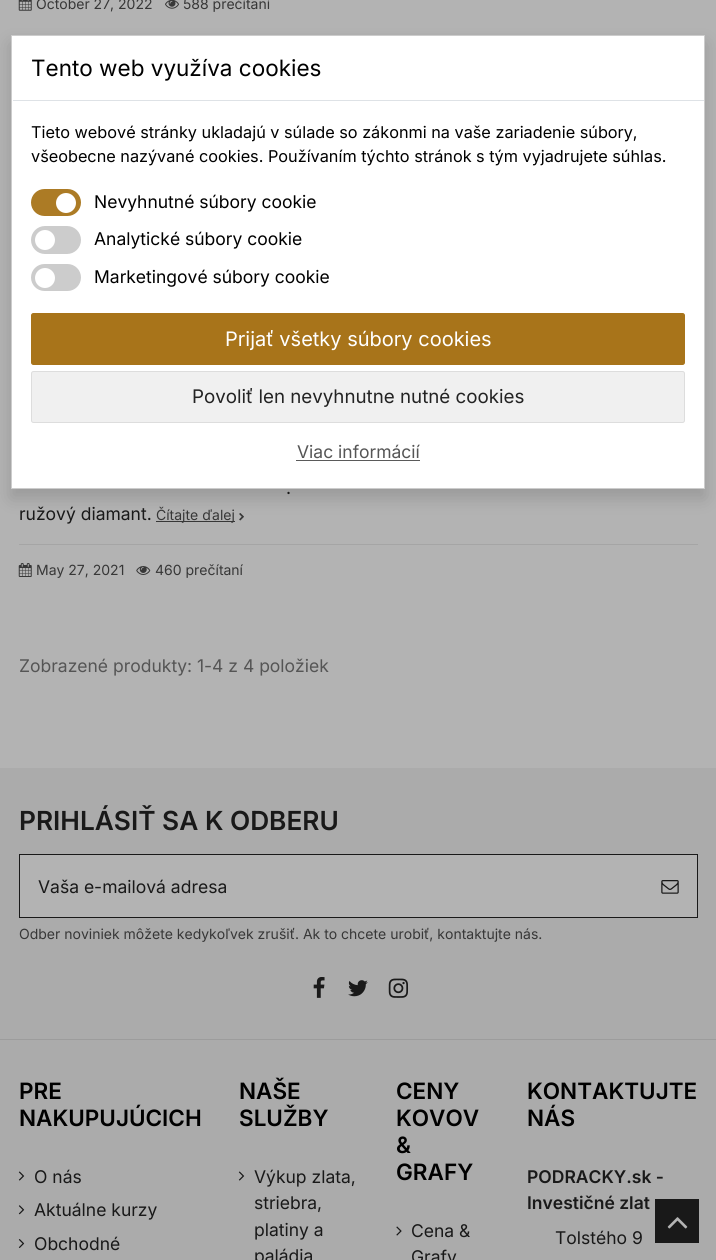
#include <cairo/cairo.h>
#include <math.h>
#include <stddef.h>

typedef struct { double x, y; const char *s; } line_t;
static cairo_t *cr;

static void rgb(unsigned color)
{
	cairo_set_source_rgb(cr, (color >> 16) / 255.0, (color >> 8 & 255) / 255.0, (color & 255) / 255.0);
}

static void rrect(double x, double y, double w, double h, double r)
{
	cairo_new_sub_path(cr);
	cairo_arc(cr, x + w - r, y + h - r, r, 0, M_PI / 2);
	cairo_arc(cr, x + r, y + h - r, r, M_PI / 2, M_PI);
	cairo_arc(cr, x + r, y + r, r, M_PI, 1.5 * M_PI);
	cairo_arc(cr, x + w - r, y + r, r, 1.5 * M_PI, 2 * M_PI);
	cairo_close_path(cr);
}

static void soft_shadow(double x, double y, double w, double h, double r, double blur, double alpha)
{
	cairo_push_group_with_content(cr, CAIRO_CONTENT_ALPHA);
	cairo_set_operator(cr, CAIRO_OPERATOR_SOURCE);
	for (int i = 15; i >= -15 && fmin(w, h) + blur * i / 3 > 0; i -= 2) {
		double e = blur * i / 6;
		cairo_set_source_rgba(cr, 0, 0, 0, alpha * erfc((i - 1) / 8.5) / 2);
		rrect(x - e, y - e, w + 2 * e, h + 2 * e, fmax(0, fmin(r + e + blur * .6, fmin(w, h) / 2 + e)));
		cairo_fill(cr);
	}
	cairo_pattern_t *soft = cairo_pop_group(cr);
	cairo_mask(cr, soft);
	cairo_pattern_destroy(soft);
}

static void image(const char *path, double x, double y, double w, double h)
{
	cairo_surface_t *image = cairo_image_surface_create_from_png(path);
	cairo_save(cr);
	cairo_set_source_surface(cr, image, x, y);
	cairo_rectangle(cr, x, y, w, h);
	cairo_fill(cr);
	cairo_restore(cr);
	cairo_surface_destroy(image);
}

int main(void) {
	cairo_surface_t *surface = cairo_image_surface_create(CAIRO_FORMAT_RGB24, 716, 1260);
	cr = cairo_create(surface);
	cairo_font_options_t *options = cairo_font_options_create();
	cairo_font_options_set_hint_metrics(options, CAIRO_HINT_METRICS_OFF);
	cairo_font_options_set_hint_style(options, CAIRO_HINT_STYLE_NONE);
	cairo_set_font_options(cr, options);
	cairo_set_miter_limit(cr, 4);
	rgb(0xb3b3b3);
	cairo_paint(cr);
	image("img/1.png", 18, 0, 14, 11);
	image("img/2.png", 165, 0, 14, 9);
	rgb(0x373737);
	cairo_rectangle(cr, 156, 521, 79, 1);
	cairo_fill(cr);
	image("img/3.png", 239, 513, 5, 8);
	rgb(0xa5a5a5);
	cairo_rectangle(cr, 19, 544, 679, 1);
	cairo_fill(cr);
	image("img/4.png", 18, 563, 14, 14);
	image("img/5.png", 136, 566, 15, 9);
	rgb(0xababab);
	cairo_rectangle(cr, 0, 768, 716, 492);
	cairo_fill(cr);
	rgb(0xb3b3b3);
	cairo_rectangle(cr, 19.5, 854.5, 678, 63);
	cairo_fill_preserve(cr);
	rgb(0x191919);
	cairo_set_line_width(cr, 1);
	cairo_stroke(cr);
	image("img/6.png", 661, 880, 18, 14);
	image("img/7.png", 313, 977, 12, 21);
	image("img/8.png", 348, 980, 20, 17);
	image("img/9.png", 388, 978, 21, 20);
	rgb(0x9c9c9c);
	cairo_rectangle(cr, 0, 1039, 716, 1);
	cairo_fill(cr);
	image("img/10.png", 18, 1171, 7, 10);
	image("img/11.png", 18, 1205, 7, 10);
	image("img/12.png", 18, 1239, 7, 9);
	image("img/10.png", 238, 1171, 7, 10);
	image("img/13.png", 396, 1226, 6, 10);
	rgb(0x000000);
	soft_shadow(11, 44, 694, 454, 0, 9, 0.15);
	rgb(0xffffff);
	cairo_rectangle(cr, 11.5, 35.5, 693, 453);
	cairo_fill_preserve(cr);
	rgb(0xcccccc);
	cairo_stroke(cr);
	rgb(0xdee2e6);
	cairo_rectangle(cr, 13, 100, 691, 1);
	cairo_fill(cr);
	rgb(0xac7b25);
	rrect(31, 189, 50, 27, 13.5);
	cairo_fill(cr);
	rgb(0xffffff);
	cairo_arc(cr, 66, 203, 10, 0, 2 * M_PI);
	cairo_fill(cr);
	rgb(0xcccccc);
	rrect(31, 226, 50, 28, 14);
	cairo_fill(cr);
	rgb(0xffffff);
	cairo_arc(cr, 45, 240, 10, 0, 2 * M_PI);
	cairo_fill(cr);
	rgb(0xcccccc);
	rrect(31, 264, 50, 27, 13.5);
	cairo_fill(cr);
	rgb(0xffffff);
	cairo_arc(cr, 45, 278, 10, 0, 2 * M_PI);
	cairo_fill(cr);
	rgb(0xa8741a);
	rrect(31.5, 313.5, 653, 51, 2);
	cairo_fill_preserve(cr);
	cairo_stroke(cr);
	rgb(0xf0f0f0);
	rrect(31.5, 371.5, 653, 51, 2);
	cairo_fill_preserve(cr);
	rgb(0xdddddd);
	cairo_stroke(cr);
	rgb(0x5a5a5a);
	cairo_rectangle(cr, 296, 460, 124, 1);
	cairo_fill(cr);
	rgb(0x191919);
	cairo_rectangle(cr, 655, 1199, 44, 44);
	cairo_fill(cr);
	image("img/14.png", 667, 1217, 21, 12);
	cairo_select_font_face(cr, "Inter", CAIRO_FONT_SLANT_NORMAL, CAIRO_FONT_WEIGHT_NORMAL);
	cairo_set_font_size(cr, 14);
	rgb(0x373737);
	cairo_move_to(cr, 36, 9);
	cairo_show_text(cr, "October 27, 2022");
	cairo_move_to(cr, 183, 9);
	cairo_show_text(cr, "588 prečítaní");
	cairo_set_font_size(cr, 17.5);
	rgb(0x191919);
	cairo_move_to(cr, 286, 494);
	cairo_show_text(cr, ".");
	cairo_move_to(cr, 19, 520);
	cairo_show_text(cr, "ružový diamant.");
	cairo_set_font_size(cr, 14);
	rgb(0x373737);
	{
		static const line_t items[] = {
			{156, 520, "Čítajte ďalej"},
			{36, 575, "May 27, 2021"},
			{155, 575, "460 prečítaní"},
		};
		for (size_t i = 0; i < sizeof items / sizeof *items; i++) {
			cairo_move_to(cr, items[i].x, items[i].y);
			cairo_show_text(cr, items[i].s);
		}
	}
	cairo_set_font_size(cr, 17.5);
	rgb(0x555555);
	cairo_move_to(cr, 19, 672);
	cairo_show_text(cr, "Zobrazené produkty: 1-4 z 4 položiek");
	cairo_select_font_face(cr, "Inter SemiBold", CAIRO_FONT_SLANT_NORMAL, CAIRO_FONT_WEIGHT_NORMAL);
	cairo_set_font_size(cr, 26.25);
	rgb(0x191919);
	cairo_move_to(cr, 19, 830);
	cairo_show_text(cr, "PRIHLÁSIŤ SA K ODBERU");
	cairo_select_font_face(cr, "Inter", CAIRO_FONT_SLANT_NORMAL, CAIRO_FONT_WEIGHT_NORMAL);
	cairo_set_font_size(cr, 17.5);
	cairo_move_to(cr, 38, 893);
	cairo_show_text(cr, "Vaša e-mailová adresa");
	cairo_set_font_size(cr, 14);
	rgb(0x373737);
	cairo_move_to(cr, 19, 939);
	cairo_show_text(cr, "Odber noviniek môžete kedykoľvek zrušiť. Ak to chcete urobiť, kontaktujte nás.");
	cairo_select_font_face(cr, "Inter SemiBold", CAIRO_FONT_SLANT_NORMAL, CAIRO_FONT_WEIGHT_NORMAL);
	cairo_set_font_size(cr, 22.5);
	rgb(0x000000);
	cairo_move_to(cr, 19, 1099);
	cairo_show_text(cr, "PRE");
	cairo_move_to(cr, 19, 1126);
	cairo_show_text(cr, "NAKUPUJÚCICH");
	cairo_select_font_face(cr, "Inter", CAIRO_FONT_SLANT_NORMAL, CAIRO_FONT_WEIGHT_NORMAL);
	cairo_set_font_size(cr, 17.5);
	rgb(0x191919);
	{
		static const line_t items[] = {
			{34, 1183, "O nás"},
			{34, 1216, "Aktuálne kurzy"},
			{34, 1250, "Obchodné"},
		};
		for (size_t i = 0; i < sizeof items / sizeof *items; i++) {
			cairo_move_to(cr, items[i].x, items[i].y);
			cairo_show_text(cr, items[i].s);
		}
	}
	cairo_select_font_face(cr, "Inter SemiBold", CAIRO_FONT_SLANT_NORMAL, CAIRO_FONT_WEIGHT_NORMAL);
	cairo_set_font_size(cr, 22.5);
	rgb(0x000000);
	cairo_move_to(cr, 239, 1099);
	cairo_show_text(cr, "NAŠE");
	cairo_move_to(cr, 239, 1126);
	cairo_show_text(cr, "SLUŽBY");
	cairo_select_font_face(cr, "Inter", CAIRO_FONT_SLANT_NORMAL, CAIRO_FONT_WEIGHT_NORMAL);
	cairo_set_font_size(cr, 17.5);
	rgb(0x191919);
	{
		static const line_t items[] = {
			{254, 1183, "Výkup zlata,"},
			{254, 1209, "striebra,"},
			{254, 1236, "platiny a"},
			{254, 1262, "paládia"},
		};
		for (size_t i = 0; i < sizeof items / sizeof *items; i++) {
			cairo_move_to(cr, items[i].x, items[i].y);
			cairo_show_text(cr, items[i].s);
		}
	}
	cairo_select_font_face(cr, "Inter SemiBold", CAIRO_FONT_SLANT_NORMAL, CAIRO_FONT_WEIGHT_NORMAL);
	cairo_set_font_size(cr, 22.5);
	rgb(0x000000);
	{
		static const line_t items[] = {
			{396, 1099, "CENY"},
			{396, 1126, "KOVOV"},
			{396, 1153, "&"},
			{396, 1180, "GRAFY"},
		};
		for (size_t i = 0; i < sizeof items / sizeof *items; i++) {
			cairo_move_to(cr, items[i].x, items[i].y);
			cairo_show_text(cr, items[i].s);
		}
	}
	cairo_select_font_face(cr, "Inter", CAIRO_FONT_SLANT_NORMAL, CAIRO_FONT_WEIGHT_NORMAL);
	cairo_set_font_size(cr, 17.5);
	rgb(0x191919);
	cairo_move_to(cr, 411, 1237);
	cairo_show_text(cr, "Cena &");
	cairo_move_to(cr, 411, 1263);
	cairo_show_text(cr, "Grafy");
	cairo_select_font_face(cr, "Inter SemiBold", CAIRO_FONT_SLANT_NORMAL, CAIRO_FONT_WEIGHT_NORMAL);
	cairo_set_font_size(cr, 22.5);
	rgb(0x000000);
	cairo_move_to(cr, 527, 1099);
	cairo_show_text(cr, "KONTAKTUJTE");
	cairo_move_to(cr, 527, 1126);
	cairo_show_text(cr, "NÁS");
	cairo_set_font_size(cr, 17.5);
	rgb(0x191919);
	cairo_move_to(cr, 527, 1183);
	cairo_show_text(cr, "PODRACKY.sk -");
	cairo_move_to(cr, 527, 1209);
	cairo_show_text(cr, "Investičné zlat");
	cairo_select_font_face(cr, "Inter", CAIRO_FONT_SLANT_NORMAL, CAIRO_FONT_WEIGHT_NORMAL);
	cairo_move_to(cr, 555, 1244);
	cairo_show_text(cr, "Tolstého 9");
	cairo_set_font_size(cr, 22.5);
	rgb(0x000000);
	cairo_move_to(cr, 31, 76);
	cairo_show_text(cr, "Tento web využíva cookies");
	cairo_set_font_size(cr, 16.25);
	cairo_move_to(cr, 31, 138);
	cairo_show_text(cr, "Tieto webové stránky ukladajú v súlade so zákonmi na vaše zariadenie súbory,");
	cairo_move_to(cr, 31, 162);
	cairo_show_text(cr, "všeobecne nazývané cookies. Používaním týchto stránok s tým vyjadrujete súhlas.");
	cairo_set_font_size(cr, 17.5);
	{
		static const line_t items[] = {
			{94, 208, "Nevyhnutné súbory cookie"},
			{94, 245, "Analytické súbory cookie"},
			{94, 283, "Marketingové súbory cookie"},
		};
		for (size_t i = 0; i < sizeof items / sizeof *items; i++) {
			cairo_move_to(cr, items[i].x, items[i].y);
			cairo_show_text(cr, items[i].s);
		}
	}
	cairo_set_font_size(cr, 20);
	rgb(0xffffff);
	cairo_move_to(cr, 225, 346);
	cairo_show_text(cr, "Prijať všetky súbory cookies");
	cairo_set_font_size(cr, 18.75);
	rgb(0x232323);
	cairo_move_to(cr, 192, 403);
	cairo_show_text(cr, "Povoliť len nevyhnutne nutné cookies");
	cairo_set_font_size(cr, 17.5);
	rgb(0x555555);
	cairo_move_to(cr, 297, 458);
	cairo_show_text(cr, "Viac informácií");
	cairo_surface_write_to_png(surface, "page.png");
	cairo_font_options_destroy(options);
	cairo_destroy(cr);
	cairo_surface_destroy(surface);
	return 0;
}
